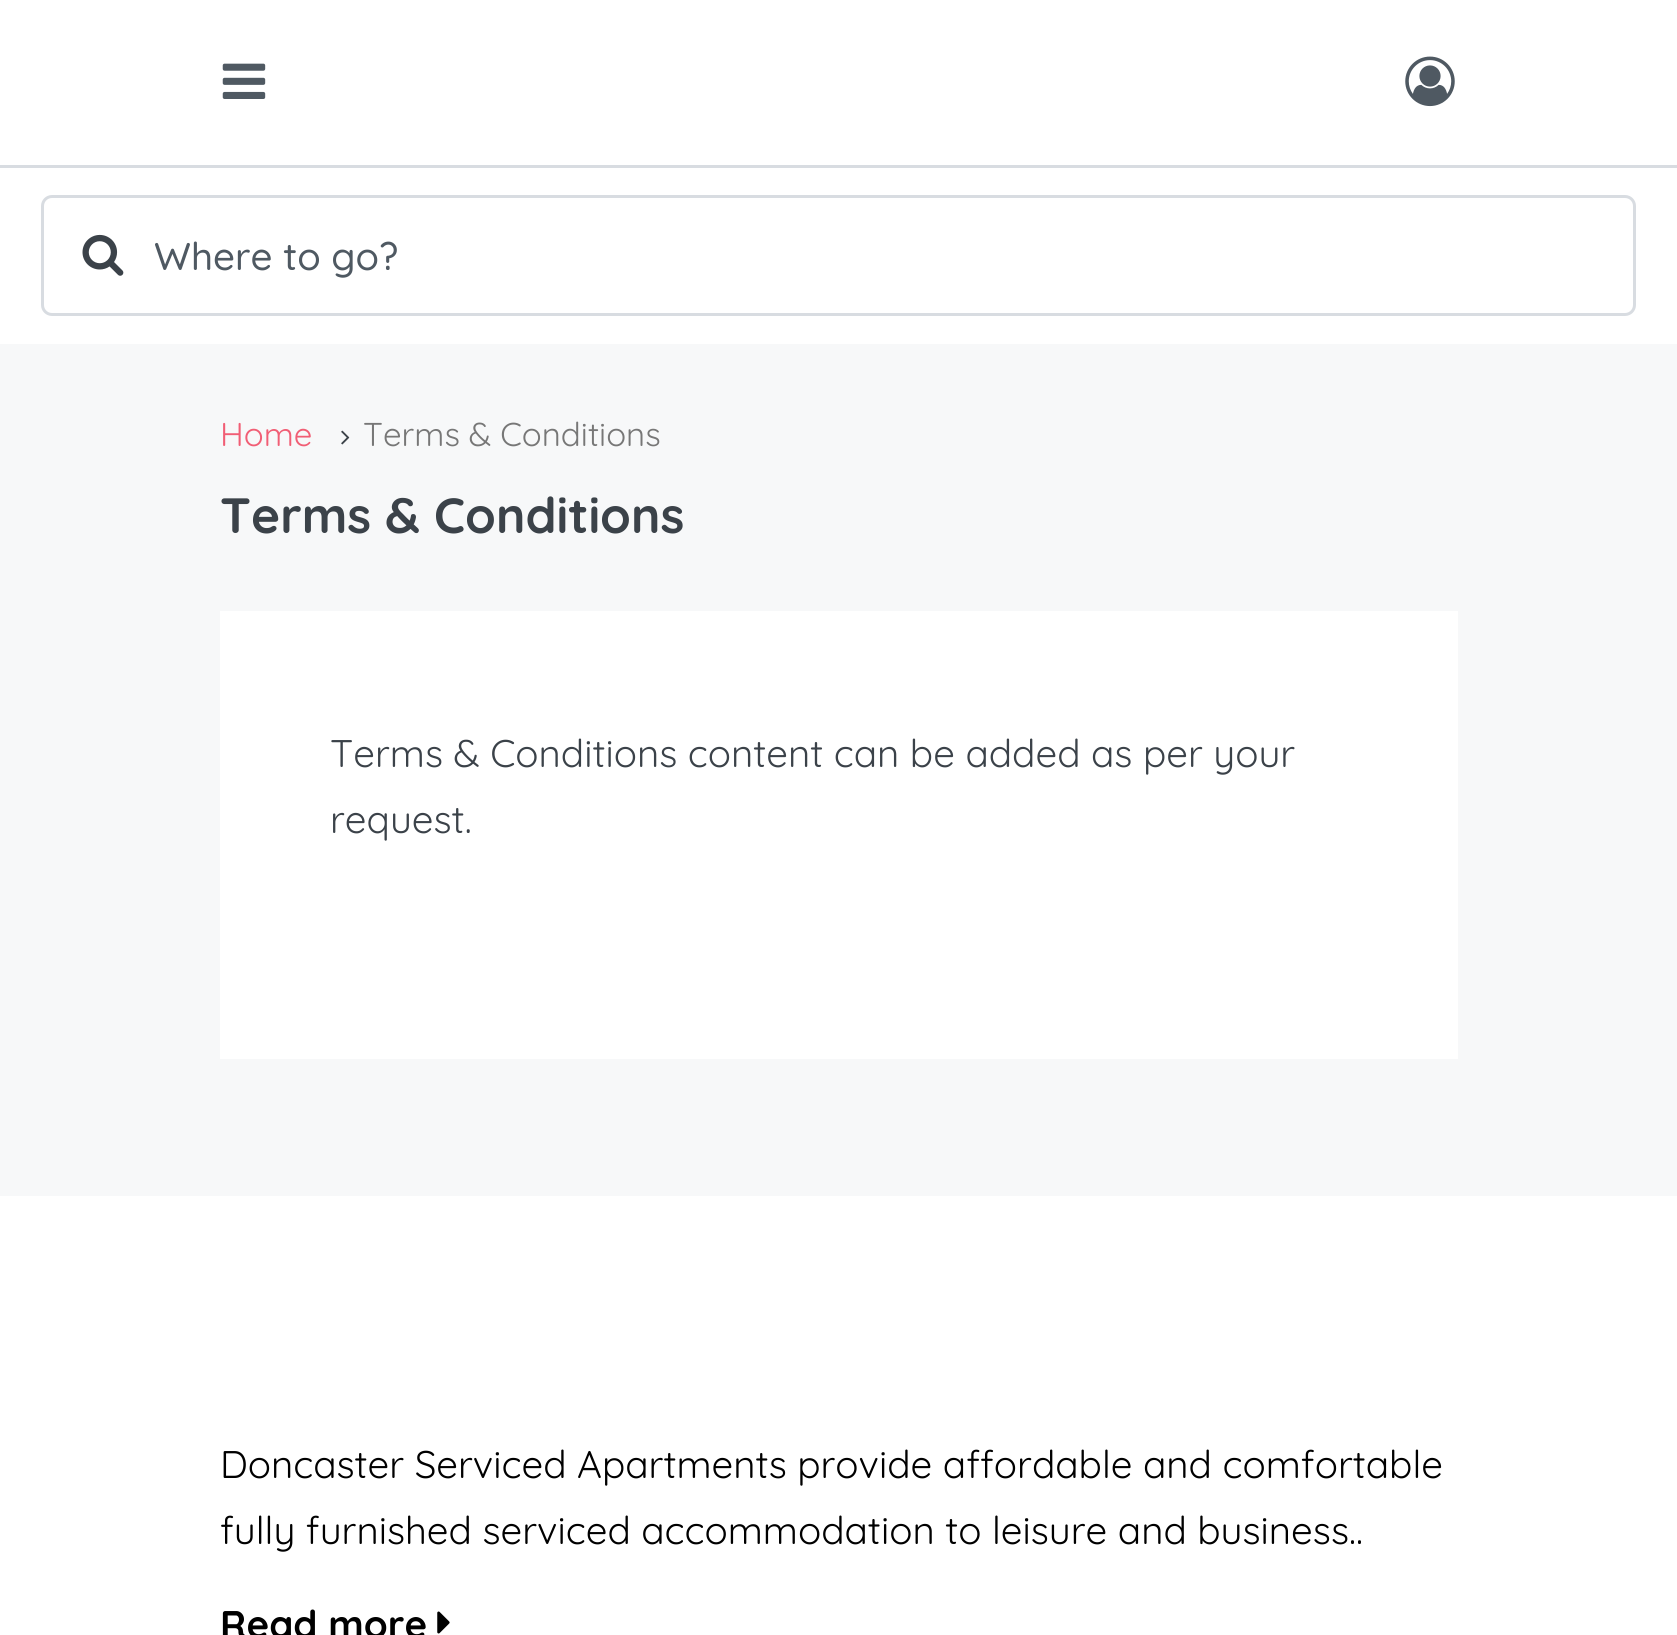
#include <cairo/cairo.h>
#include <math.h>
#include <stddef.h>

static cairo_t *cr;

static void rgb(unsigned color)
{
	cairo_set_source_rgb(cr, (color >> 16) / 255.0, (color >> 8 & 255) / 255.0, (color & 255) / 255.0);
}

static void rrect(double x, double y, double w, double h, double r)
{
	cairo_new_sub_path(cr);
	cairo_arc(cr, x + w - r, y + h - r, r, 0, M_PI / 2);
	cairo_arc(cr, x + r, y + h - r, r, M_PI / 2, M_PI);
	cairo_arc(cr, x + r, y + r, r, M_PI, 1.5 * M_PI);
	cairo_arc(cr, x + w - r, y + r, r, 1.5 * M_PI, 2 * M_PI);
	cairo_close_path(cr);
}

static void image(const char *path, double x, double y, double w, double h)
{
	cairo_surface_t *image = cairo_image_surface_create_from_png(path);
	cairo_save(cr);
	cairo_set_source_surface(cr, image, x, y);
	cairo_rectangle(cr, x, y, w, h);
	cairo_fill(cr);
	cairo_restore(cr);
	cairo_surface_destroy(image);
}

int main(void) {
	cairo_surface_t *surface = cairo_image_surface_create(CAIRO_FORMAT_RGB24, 1677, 1635);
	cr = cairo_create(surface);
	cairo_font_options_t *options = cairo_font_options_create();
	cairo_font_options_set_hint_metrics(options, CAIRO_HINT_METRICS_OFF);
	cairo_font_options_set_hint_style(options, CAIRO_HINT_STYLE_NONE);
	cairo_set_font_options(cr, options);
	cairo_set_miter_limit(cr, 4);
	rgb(0xf7f8f9);
	cairo_paint(cr);
	rgb(0xffffff);
	cairo_rectangle(cr, 0, 0, 1677, 165);
	cairo_fill(cr);
	rgb(0xd8dce1);
	cairo_rectangle(cr, 0, 165, 1677, 3);
	cairo_fill(cr);
	image("img/1.png", 222, 63, 44, 36);
	image("img/2.png", 1405, 56, 50, 51);
	rgb(0xffffff);
	cairo_rectangle(cr, 0, 168, 1677, 176);
	cairo_fill(cr);
	rrect(42.5, 196.5, 1592, 118, 9.5);
	rgb(0xd8dce1);
	cairo_set_line_width(cr, 3);
	cairo_stroke(cr);
	image("img/3.png", 82, 234, 42, 42);
	image("img/4.png", 341, 430, 9, 15);
	rgb(0xffffff);
	cairo_rectangle(cr, 220, 611, 1238, 448);
	cairo_fill(cr);
	cairo_rectangle(cr, 0, 1196, 1677, 439);
	cairo_fill(cr);
	image("img/5.png", 437, 1611, 13, 23);
	cairo_select_font_face(cr, "Quicksand Medium", CAIRO_FONT_SLANT_NORMAL, CAIRO_FONT_WEIGHT_NORMAL);
	cairo_set_font_size(cr, 38.5);
	rgb(0x4f5962);
	cairo_move_to(cr, 154, 270);
	cairo_show_text(cr, "Where to go?");
	cairo_select_font_face(cr, "Quicksand", CAIRO_FONT_SLANT_NORMAL, CAIRO_FONT_WEIGHT_NORMAL);
	cairo_set_font_size(cr, 33);
	rgb(0xf15e75);
	cairo_move_to(cr, 220, 446);
	cairo_show_text(cr, "Home");
	rgb(0x777777);
	cairo_move_to(cr, 363, 446);
	cairo_show_text(cr, "Terms & Conditions");
	cairo_select_font_face(cr, "Quicksand", CAIRO_FONT_SLANT_NORMAL, CAIRO_FONT_WEIGHT_BOLD);
	cairo_set_font_size(cr, 49.5);
	rgb(0x3b4249);
	cairo_move_to(cr, 220, 533);
	cairo_show_text(cr, "Terms & Conditions");
	cairo_select_font_face(cr, "Quicksand", CAIRO_FONT_SLANT_NORMAL, CAIRO_FONT_WEIGHT_NORMAL);
	cairo_set_font_size(cr, 38.5);
	cairo_move_to(cr, 330, 767);
	cairo_show_text(cr, "Terms & Conditions content can be added as per your");
	cairo_move_to(cr, 330, 833);
	cairo_show_text(cr, "request.");
	rgb(0x000000);
	cairo_move_to(cr, 220, 1478);
	cairo_show_text(cr, "Doncaster Serviced Apartments provide affordable and comfortable");
	cairo_move_to(cr, 220, 1544);
	cairo_show_text(cr, "fully furnished serviced accommodation to leisure and business..");
	cairo_select_font_face(cr, "Quicksand", CAIRO_FONT_SLANT_NORMAL, CAIRO_FONT_WEIGHT_BOLD);
	cairo_move_to(cr, 220, 1638);
	cairo_show_text(cr, "Read more");
	cairo_surface_write_to_png(surface, "page.png");
	cairo_font_options_destroy(options);
	cairo_destroy(cr);
	cairo_surface_destroy(surface);
	return 0;
}
